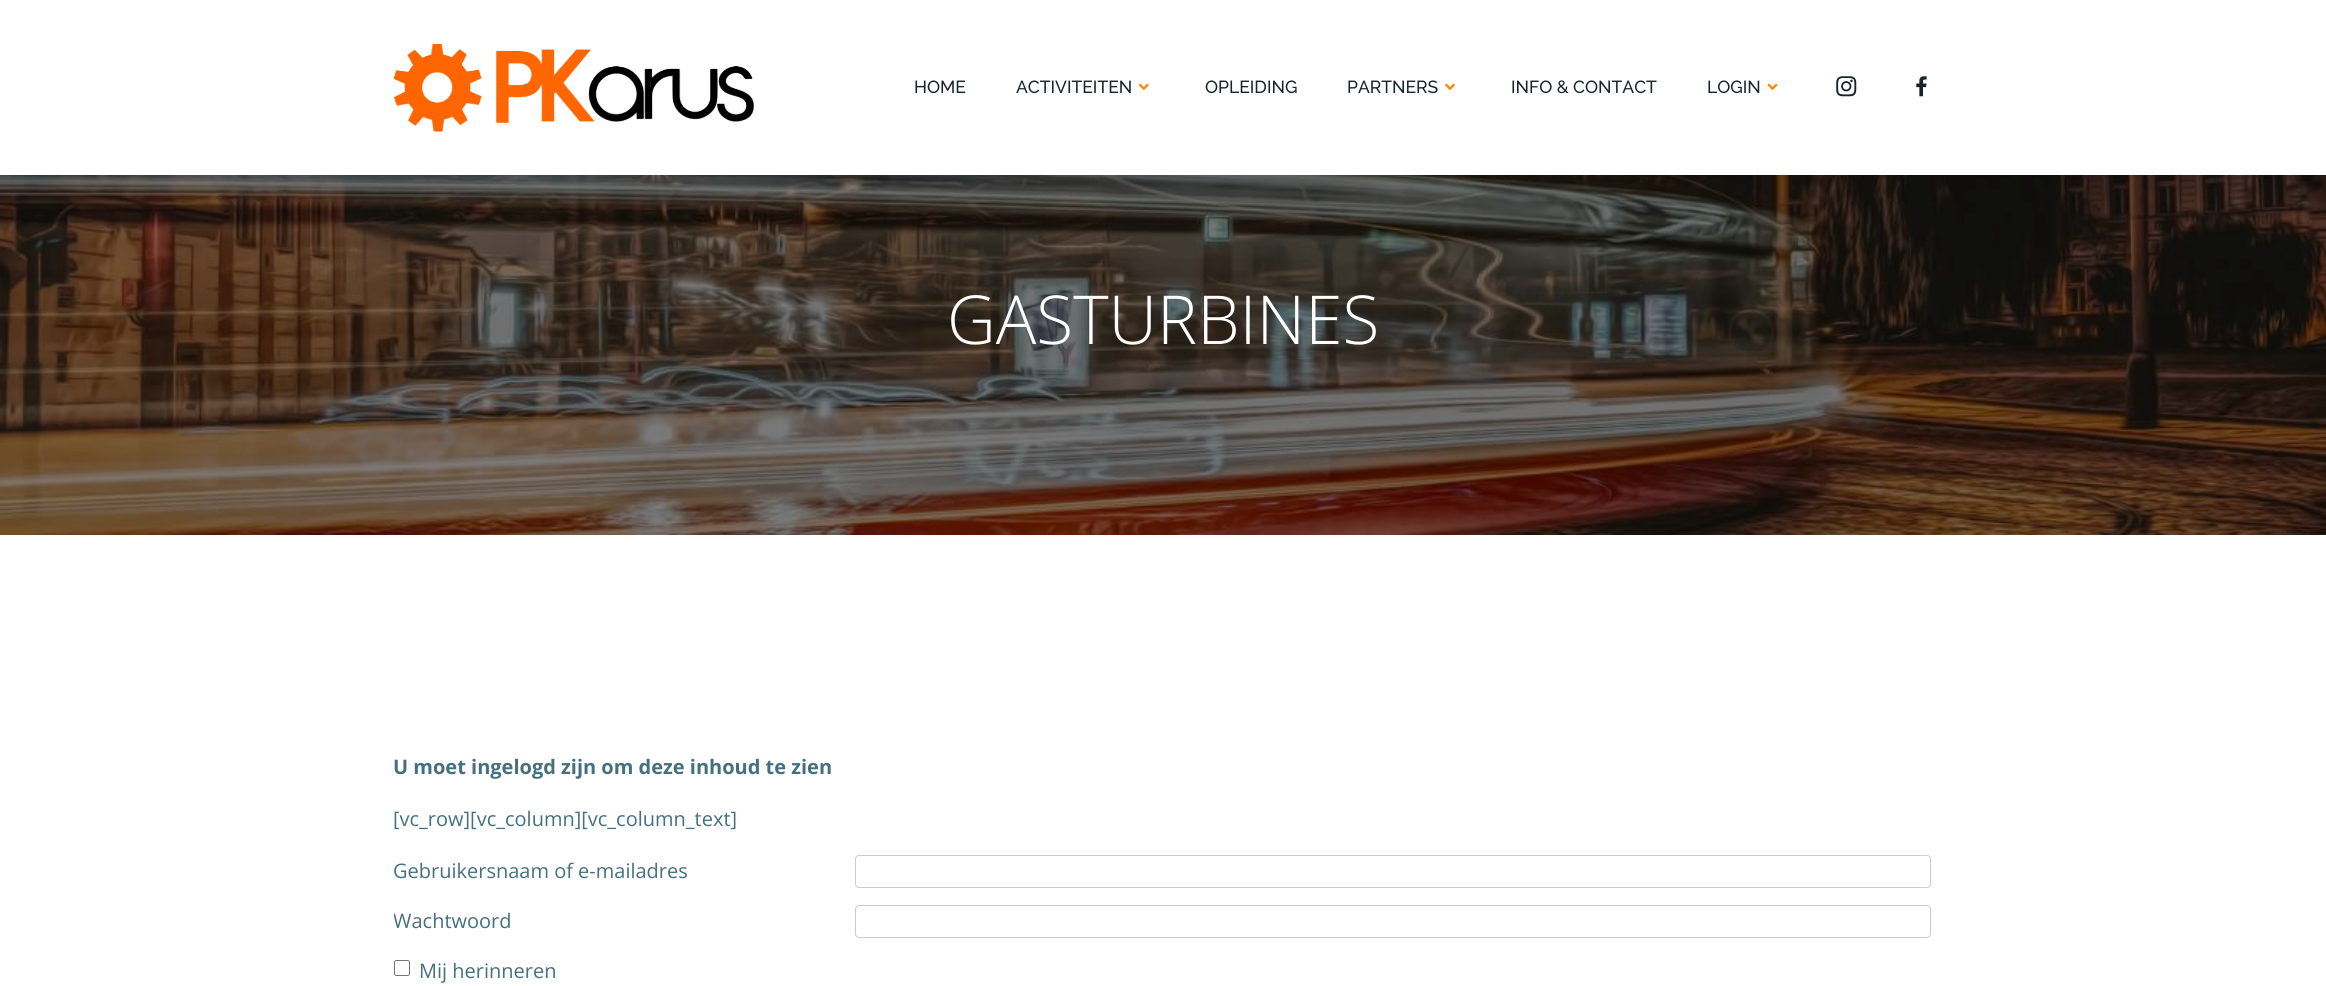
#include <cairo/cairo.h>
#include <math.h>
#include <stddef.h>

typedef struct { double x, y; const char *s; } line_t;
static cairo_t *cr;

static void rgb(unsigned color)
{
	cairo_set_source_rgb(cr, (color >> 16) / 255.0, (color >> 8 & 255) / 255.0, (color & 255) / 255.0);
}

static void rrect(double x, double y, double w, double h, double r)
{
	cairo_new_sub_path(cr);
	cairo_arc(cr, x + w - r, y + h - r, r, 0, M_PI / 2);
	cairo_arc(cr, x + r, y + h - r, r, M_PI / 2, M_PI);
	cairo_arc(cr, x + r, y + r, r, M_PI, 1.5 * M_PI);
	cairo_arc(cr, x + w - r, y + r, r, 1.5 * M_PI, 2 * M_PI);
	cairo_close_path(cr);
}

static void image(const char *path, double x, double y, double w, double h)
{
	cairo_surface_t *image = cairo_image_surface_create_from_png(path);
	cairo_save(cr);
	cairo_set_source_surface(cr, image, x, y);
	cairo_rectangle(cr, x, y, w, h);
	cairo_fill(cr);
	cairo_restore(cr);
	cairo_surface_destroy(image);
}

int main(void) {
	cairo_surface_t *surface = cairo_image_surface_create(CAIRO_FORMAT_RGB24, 2326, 986);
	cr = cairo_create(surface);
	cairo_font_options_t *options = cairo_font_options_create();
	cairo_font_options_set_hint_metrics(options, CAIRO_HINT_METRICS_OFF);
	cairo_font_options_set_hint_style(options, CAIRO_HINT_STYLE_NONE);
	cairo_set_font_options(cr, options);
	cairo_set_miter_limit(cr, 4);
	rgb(0xffffff);
	cairo_paint(cr);
	image("img/1.png", 393, 44, 361, 88);
	image("img/2.png", 1138, 83, 11, 8);
	image("img/3.png", 1445, 83, 10, 7);
	image("img/4.png", 1767, 83, 11, 8);
	image("img/5.png", 1836, 76, 21, 21);
	image("img/6.png", 1916, 76, 11, 21);
	image("img/7.png", 0, 175, 2326, 360);
	rrect(855.5, 855.5, 1075, 32, 3.5);
	rgb(0xcccccc);
	cairo_set_line_width(cr, 1);
	cairo_stroke(cr);
	rrect(855.5, 905.5, 1075, 32, 3.5);
	cairo_stroke(cr);
	rrect(394.5, 960.5, 15, 15, 2);
	rgb(0x767676);
	cairo_stroke(cr);
	cairo_select_font_face(cr, "Raleway Medium", CAIRO_FONT_SLANT_NORMAL, CAIRO_FONT_WEIGHT_NORMAL);
	cairo_set_font_size(cr, 17.5);
	rgb(0x17252a);
	{
		static const line_t items[] = {
			{914, 93, "HOME"},
			{1016, 93, "ACTIVITEITEN"},
			{1205, 93, "OPLEIDING"},
			{1347, 93, "PARTNERS"},
			{1511, 93, "INFO & CONTACT"},
			{1707, 93, "LOGIN"},
		};
		for (size_t i = 0; i < sizeof items / sizeof *items; i++) {
			cairo_move_to(cr, items[i].x, items[i].y);
			cairo_show_text(cr, items[i].s);
		}
	}
	cairo_select_font_face(cr, "Open Sans Light", CAIRO_FONT_SLANT_NORMAL, CAIRO_FONT_WEIGHT_NORMAL);
	cairo_set_font_size(cr, 67.5);
	rgb(0xffffff);
	cairo_move_to(cr, 947, 344);
	cairo_show_text(cr, "GASTURBINES");
	cairo_select_font_face(cr, "Open Sans", CAIRO_FONT_SLANT_NORMAL, CAIRO_FONT_WEIGHT_BOLD);
	cairo_set_font_size(cr, 20);
	rgb(0x46707f);
	cairo_move_to(cr, 393, 774);
	cairo_show_text(cr, "U moet ingelogd zijn om deze inhoud te zien");
	cairo_select_font_face(cr, "Open Sans", CAIRO_FONT_SLANT_NORMAL, CAIRO_FONT_WEIGHT_NORMAL);
	cairo_move_to(cr, 393, 826);
	cairo_show_text(cr, "[vc_row][vc_column][vc_column_text]");
	cairo_move_to(cr, 393, 878);
	cairo_show_text(cr, "Gebruikersnaam of e-mailadres");
	cairo_save(cr);
	cairo_rectangle(cr, 394, 905, 1540, 33);
	cairo_clip(cr);
	cairo_move_to(cr, 393, 928);
	cairo_show_text(cr, "Wachtwoord");
	cairo_restore(cr);
	cairo_move_to(cr, 419, 978);
	cairo_show_text(cr, "Mij herinneren");
	cairo_surface_write_to_png(surface, "page.png");
	cairo_font_options_destroy(options);
	cairo_destroy(cr);
	cairo_surface_destroy(surface);
	return 0;
}
